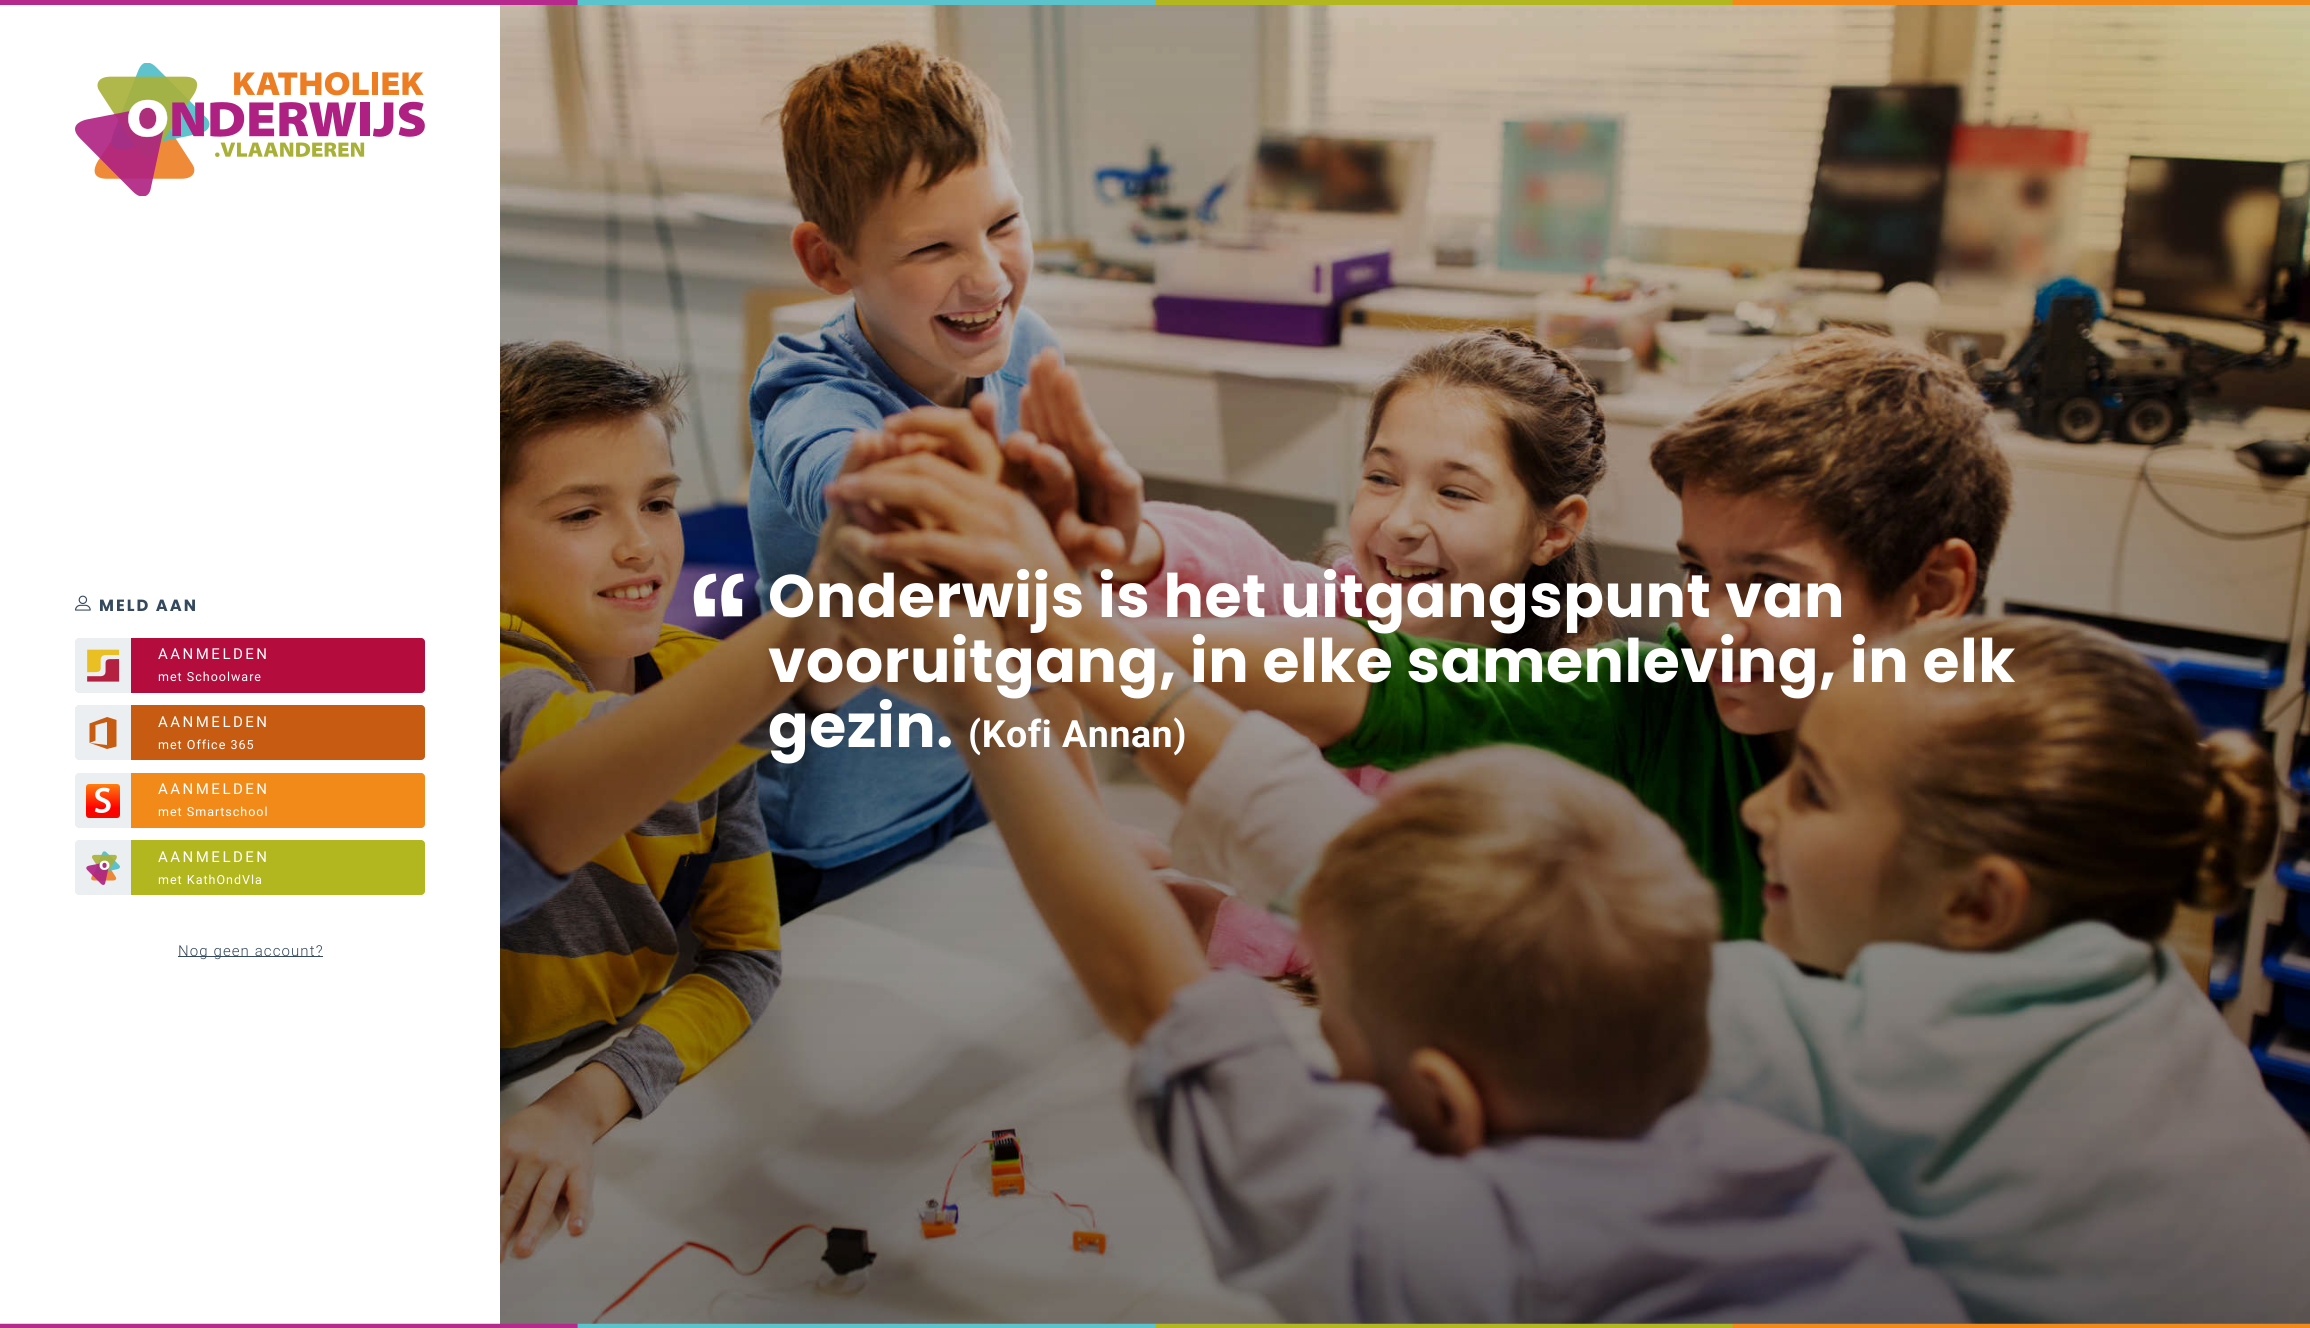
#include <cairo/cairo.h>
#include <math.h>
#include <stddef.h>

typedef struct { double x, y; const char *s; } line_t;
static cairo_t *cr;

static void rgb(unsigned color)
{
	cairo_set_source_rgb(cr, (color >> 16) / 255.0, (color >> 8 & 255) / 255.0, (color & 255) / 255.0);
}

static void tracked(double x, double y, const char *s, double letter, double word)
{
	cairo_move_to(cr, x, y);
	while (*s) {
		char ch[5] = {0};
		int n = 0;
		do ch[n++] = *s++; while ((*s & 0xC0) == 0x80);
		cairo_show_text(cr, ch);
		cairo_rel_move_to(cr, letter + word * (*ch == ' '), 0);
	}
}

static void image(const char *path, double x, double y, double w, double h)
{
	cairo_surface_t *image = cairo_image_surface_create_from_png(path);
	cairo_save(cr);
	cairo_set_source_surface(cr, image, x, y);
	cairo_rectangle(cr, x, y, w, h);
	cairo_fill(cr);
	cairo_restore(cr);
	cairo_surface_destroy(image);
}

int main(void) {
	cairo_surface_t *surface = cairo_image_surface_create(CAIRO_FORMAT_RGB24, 2310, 1328);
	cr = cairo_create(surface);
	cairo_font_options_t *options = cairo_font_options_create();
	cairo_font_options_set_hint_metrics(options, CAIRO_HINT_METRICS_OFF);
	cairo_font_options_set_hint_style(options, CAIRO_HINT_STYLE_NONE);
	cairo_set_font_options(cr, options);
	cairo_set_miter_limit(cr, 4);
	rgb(0xffffff);
	cairo_paint(cr);
	image("img/1.png", 0, 0, 2310, 5);
	image("img/2.png", 500, 5, 1810, 1319);
	image("img/3.png", 75, 63, 350, 133);
	image("img/4.png", 75, 595, 16, 16);
	rgb(0xb30c3d);
	cairo_new_path(cr);
	cairo_move_to(cr, 81, 638.5);
	cairo_line_to(cr, 421, 638.5);
	cairo_curve_to(cr, 423, 638.5, 424.5, 640, 424.5, 642);
	cairo_line_to(cr, 424.5, 689);
	cairo_curve_to(cr, 424.5, 691, 423, 692.5, 421, 692.5);
	cairo_line_to(cr, 81, 692.5);
	cairo_curve_to(cr, 78, 692.5, 75.5, 690, 75.5, 687);
	cairo_line_to(cr, 75.5, 644);
	cairo_curve_to(cr, 75.5, 641, 78, 638.5, 81, 638.5);
	cairo_close_path(cr);
	cairo_fill_preserve(cr);
	cairo_set_line_width(cr, 1);
	cairo_stroke(cr);
	rgb(0xebeff2);
	cairo_new_path(cr);
	cairo_move_to(cr, 79, 638);
	cairo_line_to(cr, 131, 638);
	cairo_line_to(cr, 131, 693);
	cairo_line_to(cr, 79, 693);
	cairo_curve_to(cr, 77, 693, 75, 691, 75, 689);
	cairo_line_to(cr, 75, 642);
	cairo_curve_to(cr, 75, 640, 77, 638, 79, 638);
	cairo_close_path(cr);
	cairo_fill(cr);
	image("img/5.png", 87, 649, 33, 33);
	rgb(0xc75b12);
	cairo_new_path(cr);
	cairo_move_to(cr, 81, 705.5);
	cairo_line_to(cr, 421, 705.5);
	cairo_curve_to(cr, 423, 705.5, 424.5, 707, 424.5, 709);
	cairo_line_to(cr, 424.5, 756);
	cairo_curve_to(cr, 424.5, 758, 423, 759.5, 421, 759.5);
	cairo_line_to(cr, 81, 759.5);
	cairo_curve_to(cr, 78, 759.5, 75.5, 757, 75.5, 754);
	cairo_line_to(cr, 75.5, 711);
	cairo_curve_to(cr, 75.5, 708, 78, 705.5, 81, 705.5);
	cairo_close_path(cr);
	cairo_fill_preserve(cr);
	cairo_stroke(cr);
	rgb(0xebeff2);
	cairo_new_path(cr);
	cairo_move_to(cr, 79, 705);
	cairo_line_to(cr, 131, 705);
	cairo_line_to(cr, 131, 760);
	cairo_line_to(cr, 79, 760);
	cairo_curve_to(cr, 77, 760, 75, 758, 75, 756);
	cairo_line_to(cr, 75, 709);
	cairo_curve_to(cr, 75, 707, 77, 705, 79, 705);
	cairo_close_path(cr);
	cairo_fill(cr);
	rgb(0xc75b12);
	cairo_new_path(cr);
	cairo_move_to(cr, 116.5, 746.5);
	cairo_line_to(cr, 116.5, 720);
	cairo_line_to(cr, 107, 717);
	cairo_line_to(cr, 89.5, 723.5);
	cairo_line_to(cr, 89.5, 743);
	cairo_line_to(cr, 95.5, 740.5);
	cairo_line_to(cr, 95.5, 725);
	cairo_line_to(cr, 107, 722);
	cairo_line_to(cr, 107, 745);
	cairo_line_to(cr, 90, 743);
	cairo_line_to(cr, 107, 749);
	cairo_close_path(cr);
	cairo_fill(cr);
	rgb(0xf28a1a);
	cairo_new_path(cr);
	cairo_move_to(cr, 81, 773.5);
	cairo_line_to(cr, 421, 773.5);
	cairo_curve_to(cr, 423, 773.5, 424.5, 775, 424.5, 777);
	cairo_line_to(cr, 424.5, 824);
	cairo_curve_to(cr, 424.5, 826, 423, 827.5, 421, 827.5);
	cairo_line_to(cr, 81, 827.5);
	cairo_curve_to(cr, 78, 827.5, 75.5, 825, 75.5, 822);
	cairo_line_to(cr, 75.5, 779);
	cairo_curve_to(cr, 75.5, 776, 78, 773.5, 81, 773.5);
	cairo_close_path(cr);
	cairo_fill_preserve(cr);
	cairo_stroke(cr);
	rgb(0xebeff2);
	cairo_new_path(cr);
	cairo_move_to(cr, 79, 773);
	cairo_line_to(cr, 131, 773);
	cairo_line_to(cr, 131, 828);
	cairo_line_to(cr, 79, 828);
	cairo_curve_to(cr, 77, 828, 75, 826, 75, 824);
	cairo_line_to(cr, 75, 777);
	cairo_curve_to(cr, 75, 775, 77, 773, 79, 773);
	cairo_close_path(cr);
	cairo_fill(cr);
	image("img/6.png", 86, 784, 34, 34);
	rgb(0xb2b720);
	cairo_new_path(cr);
	cairo_move_to(cr, 81, 840.5);
	cairo_line_to(cr, 421, 840.5);
	cairo_curve_to(cr, 423, 840.5, 424.5, 842, 424.5, 844);
	cairo_line_to(cr, 424.5, 891);
	cairo_curve_to(cr, 424.5, 893, 423, 894.5, 421, 894.5);
	cairo_line_to(cr, 81, 894.5);
	cairo_curve_to(cr, 78, 894.5, 75.5, 892, 75.5, 889);
	cairo_line_to(cr, 75.5, 846);
	cairo_curve_to(cr, 75.5, 843, 78, 840.5, 81, 840.5);
	cairo_close_path(cr);
	cairo_fill_preserve(cr);
	cairo_stroke(cr);
	rgb(0xebeff2);
	cairo_new_path(cr);
	cairo_move_to(cr, 79, 840);
	cairo_line_to(cr, 131, 840);
	cairo_line_to(cr, 131, 895);
	cairo_line_to(cr, 79, 895);
	cairo_curve_to(cr, 77, 895, 75, 893, 75, 891);
	cairo_line_to(cr, 75, 844);
	cairo_curve_to(cr, 75, 842, 77, 840, 79, 840);
	cairo_close_path(cr);
	cairo_fill(cr);
	image("img/7.png", 86, 851, 34, 34);
	rgb(0x34495e);
	cairo_rectangle(cr, 178, 956, 145, 1);
	cairo_fill(cr);
	image("img/8.png", 693, 573, 51, 44);
	image("img/9.png", 0, 1323, 2310, 5);
	cairo_select_font_face(cr, "Poppins", CAIRO_FONT_SLANT_NORMAL, CAIRO_FONT_WEIGHT_BOLD);
	cairo_set_font_size(cr, 16.25);
	tracked(99, 611, "MELD AAN", 2, 0);
	cairo_select_font_face(cr, "Roboto", CAIRO_FONT_SLANT_NORMAL, CAIRO_FONT_WEIGHT_NORMAL);
	cairo_set_font_size(cr, 15);
	rgb(0xffffff);
	tracked(158, 659, "AANMELDEN", 2.5, 0);
	cairo_set_font_size(cr, 12.5);
	tracked(158, 681, "met Schoolware", 1, 0);
	cairo_set_font_size(cr, 15);
	tracked(158, 727, "AANMELDEN", 2.5, 0);
	cairo_set_font_size(cr, 12.5);
	tracked(158, 749, "met Office 365", 1, 0);
	cairo_set_font_size(cr, 15);
	tracked(158, 794, "AANMELDEN", 2.5, 0);
	cairo_set_font_size(cr, 12.5);
	tracked(158, 816, "met Smartschool", 1, 0);
	cairo_set_font_size(cr, 15);
	tracked(158, 862, "AANMELDEN", 2.5, 0);
	cairo_set_font_size(cr, 12.5);
	tracked(158, 884, "met KathOndVla", 1, 0);
	cairo_select_font_face(cr, "Roboto Light", CAIRO_FONT_SLANT_NORMAL, CAIRO_FONT_WEIGHT_NORMAL);
	cairo_set_font_size(cr, 15);
	rgb(0x34495e);
	tracked(178, 956, "Nog geen account?", 1.1, 0);
	cairo_select_font_face(cr, "Poppins", CAIRO_FONT_SLANT_NORMAL, CAIRO_FONT_WEIGHT_BOLD);
	cairo_set_font_size(cr, 60);
	rgb(0xffffff);
	{
		static const line_t items[] = {
			{768, 617, "Onderwijs is het uitgangspunt van"},
			{768, 682, "vooruitgang, in elke samenleving, in elk"},
			{768, 747, "gezin."},
		};
		for (size_t i = 0; i < sizeof items / sizeof *items; i++) {
			tracked(items[i].x, items[i].y, items[i].s, 0.55, 0);
		}
	}
	cairo_select_font_face(cr, "Roboto", CAIRO_FONT_SLANT_NORMAL, CAIRO_FONT_WEIGHT_BOLD);
	cairo_set_font_size(cr, 37.5);
	tracked(968, 747, "(Kofi Annan)", 0.55, 0);
	cairo_surface_write_to_png(surface, "page.png");
	cairo_font_options_destroy(options);
	cairo_destroy(cr);
	cairo_surface_destroy(surface);
	return 0;
}
